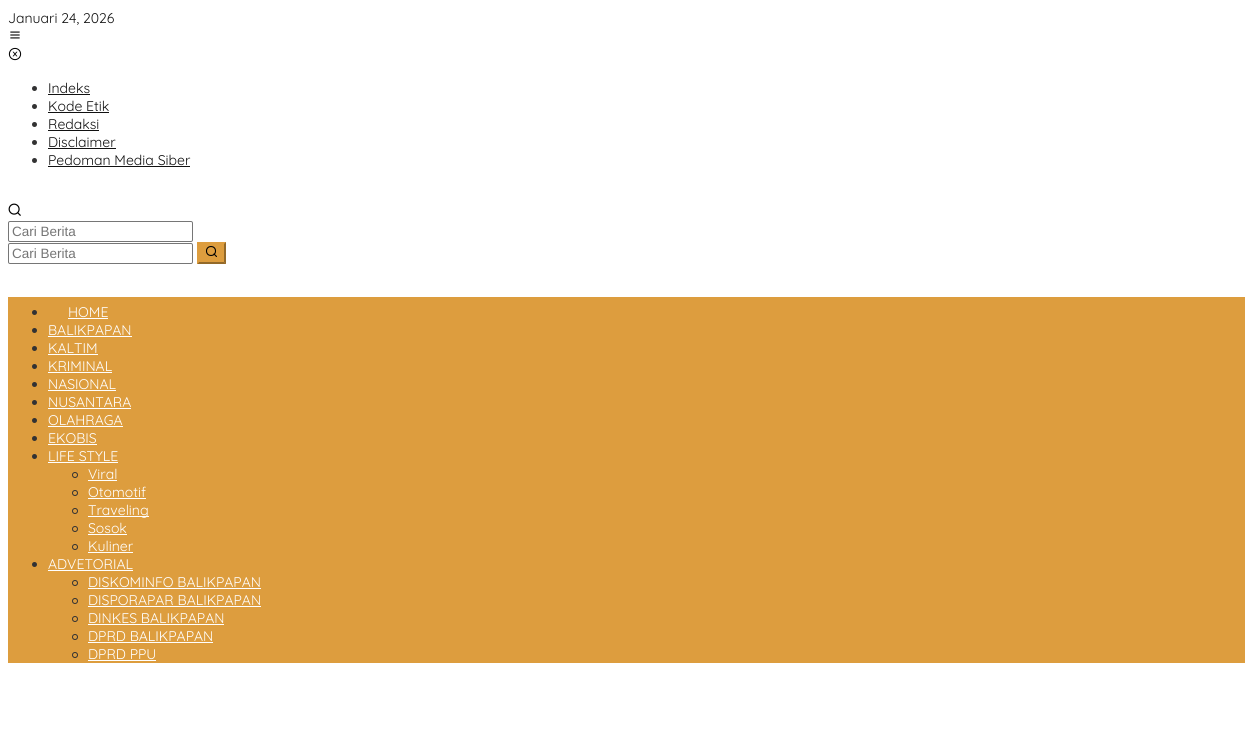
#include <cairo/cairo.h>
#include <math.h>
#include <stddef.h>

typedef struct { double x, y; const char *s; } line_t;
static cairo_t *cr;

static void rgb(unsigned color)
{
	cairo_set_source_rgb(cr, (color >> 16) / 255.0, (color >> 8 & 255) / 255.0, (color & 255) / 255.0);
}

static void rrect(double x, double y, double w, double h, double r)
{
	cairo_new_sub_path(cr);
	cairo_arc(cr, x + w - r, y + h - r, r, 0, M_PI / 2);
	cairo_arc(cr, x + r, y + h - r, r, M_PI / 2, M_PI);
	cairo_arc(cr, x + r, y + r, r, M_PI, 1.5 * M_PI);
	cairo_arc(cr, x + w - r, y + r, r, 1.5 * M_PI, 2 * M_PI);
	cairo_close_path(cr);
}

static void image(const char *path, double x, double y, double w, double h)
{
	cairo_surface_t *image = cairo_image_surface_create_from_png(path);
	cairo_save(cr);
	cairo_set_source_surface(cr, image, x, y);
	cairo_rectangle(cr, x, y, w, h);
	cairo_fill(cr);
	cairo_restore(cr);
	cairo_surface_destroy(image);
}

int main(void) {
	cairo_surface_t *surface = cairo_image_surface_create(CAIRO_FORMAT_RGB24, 1253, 753);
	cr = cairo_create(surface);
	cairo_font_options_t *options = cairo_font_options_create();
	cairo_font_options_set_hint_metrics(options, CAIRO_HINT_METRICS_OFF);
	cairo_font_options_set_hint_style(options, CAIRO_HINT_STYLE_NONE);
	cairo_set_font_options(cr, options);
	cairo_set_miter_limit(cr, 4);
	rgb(0xffffff);
	cairo_paint(cr);
	image("img/1.png", 10, 31, 10, 8);
	image("img/2.png", 8, 47, 14, 14);
	rgb(0x323233);
	cairo_arc(cr, 34.5, 88.5, 2.5, 0, 2 * M_PI);
	cairo_fill(cr);
	rgb(0x111111);
	cairo_rectangle(cr, 48, 94, 42, 1);
	cairo_fill(cr);
	rgb(0x323233);
	cairo_arc(cr, 34.5, 106.5, 2.5, 0, 2 * M_PI);
	cairo_fill(cr);
	rgb(0x111111);
	cairo_rectangle(cr, 48, 112, 61, 1);
	cairo_fill(cr);
	rgb(0x323233);
	cairo_arc(cr, 34.5, 124.5, 2.5, 0, 2 * M_PI);
	cairo_fill(cr);
	rgb(0x111111);
	cairo_rectangle(cr, 48, 130, 51, 1);
	cairo_fill(cr);
	rgb(0x323233);
	cairo_arc(cr, 34.5, 142.5, 2.5, 0, 2 * M_PI);
	cairo_fill(cr);
	rgb(0x111111);
	cairo_rectangle(cr, 48, 148, 68, 1);
	cairo_fill(cr);
	rgb(0x323233);
	cairo_arc(cr, 34.5, 160.5, 2.5, 0, 2 * M_PI);
	cairo_fill(cr);
	rgb(0x111111);
	cairo_rectangle(cr, 48, 166, 142, 1);
	cairo_fill(cr);
	image("img/3.png", 8, 203, 13, 13);
	rrect(8.5, 221.5, 184, 20, 1.5);
	rgb(0x767676);
	cairo_set_line_width(cr, 1);
	cairo_stroke(cr);
	rrect(8.5, 243.5, 184, 20, 1.5);
	cairo_stroke(cr);
	rgb(0xdd9d3e);
	cairo_rectangle(cr, 197, 242, 29, 22);
	cairo_fill(cr);
	rgb(0x936929);
	cairo_new_path(cr);
	cairo_move_to(cr, 226, 242);
	cairo_line_to(cr, 226, 264);
	cairo_line_to(cr, 224, 262);
	cairo_line_to(cr, 224, 244);
	cairo_close_path(cr);
	cairo_fill(cr);
	cairo_new_path(cr);
	cairo_move_to(cr, 226, 264);
	cairo_line_to(cr, 197, 264);
	cairo_line_to(cr, 199, 262);
	cairo_line_to(cr, 224, 262);
	cairo_close_path(cr);
	cairo_fill(cr);
	rgb(0xdd9d3e);
	cairo_new_path(cr);
	cairo_move_to(cr, 197, 264);
	cairo_line_to(cr, 197, 242);
	cairo_line_to(cr, 199, 244);
	cairo_line_to(cr, 199, 262);
	cairo_close_path(cr);
	cairo_fill(cr);
	cairo_arc(cr, 211, 251, 4.5, 0, 2 * M_PI);
	rgb(0x000000);
	cairo_set_line_width(cr, 1.1);
	cairo_stroke(cr);
	cairo_new_path(cr);
	cairo_move_to(cr, 216.5, 256.5);
	cairo_line_to(cr, 214, 254);
	cairo_set_line_cap(cr, CAIRO_LINE_CAP_ROUND);
	cairo_set_line_join(cr, CAIRO_LINE_JOIN_ROUND);
	cairo_stroke(cr);
	rgb(0xdd9d3e);
	cairo_rectangle(cr, 8, 297, 1237, 366);
	cairo_fill(cr);
	rgb(0x323233);
	cairo_arc(cr, 34.5, 312.5, 2.5, 0, 2 * M_PI);
	cairo_fill(cr);
	rgb(0xffffff);
	cairo_rectangle(cr, 68, 318, 40, 1);
	cairo_fill(cr);
	rgb(0x323233);
	cairo_arc(cr, 34.5, 330.5, 2.5, 0, 2 * M_PI);
	cairo_fill(cr);
	rgb(0xffffff);
	cairo_rectangle(cr, 48, 336, 84, 1);
	cairo_fill(cr);
	rgb(0x323233);
	cairo_arc(cr, 34.5, 348.5, 2.5, 0, 2 * M_PI);
	cairo_fill(cr);
	rgb(0xffffff);
	cairo_rectangle(cr, 48, 354, 50, 1);
	cairo_fill(cr);
	rgb(0x323233);
	cairo_arc(cr, 34.5, 366.5, 2.5, 0, 2 * M_PI);
	cairo_fill(cr);
	rgb(0xffffff);
	cairo_rectangle(cr, 48, 372, 64, 1);
	cairo_fill(cr);
	rgb(0x323233);
	cairo_arc(cr, 34.5, 384.5, 2.5, 0, 2 * M_PI);
	cairo_fill(cr);
	rgb(0xffffff);
	cairo_rectangle(cr, 48, 390, 68, 1);
	cairo_fill(cr);
	rgb(0x323233);
	cairo_arc(cr, 34.5, 402.5, 2.5, 0, 2 * M_PI);
	cairo_fill(cr);
	rgb(0xffffff);
	cairo_rectangle(cr, 48, 408, 83, 1);
	cairo_fill(cr);
	rgb(0x323233);
	cairo_arc(cr, 34.5, 420.5, 2.5, 0, 2 * M_PI);
	cairo_fill(cr);
	rgb(0xffffff);
	cairo_rectangle(cr, 48, 426, 75, 1);
	cairo_fill(cr);
	rgb(0x323233);
	cairo_arc(cr, 34.5, 438.5, 2.5, 0, 2 * M_PI);
	cairo_fill(cr);
	rgb(0xffffff);
	cairo_rectangle(cr, 48, 444, 49, 1);
	cairo_fill(cr);
	rgb(0x323233);
	cairo_arc(cr, 34.5, 456.5, 2.5, 0, 2 * M_PI);
	cairo_fill(cr);
	rgb(0xffffff);
	cairo_rectangle(cr, 48, 462, 70, 1);
	cairo_fill(cr);
	cairo_arc(cr, 75, 475, 2.5, 0, 2 * M_PI);
	rgb(0x323233);
	cairo_set_line_width(cr, 1);
	cairo_set_line_cap(cr, CAIRO_LINE_CAP_BUTT);
	cairo_set_line_join(cr, CAIRO_LINE_JOIN_MITER);
	cairo_stroke(cr);
	rgb(0xffffff);
	cairo_rectangle(cr, 88, 480, 29, 1);
	cairo_fill(cr);
	cairo_arc(cr, 75, 493, 2.5, 0, 2 * M_PI);
	rgb(0x323233);
	cairo_stroke(cr);
	rgb(0xffffff);
	cairo_rectangle(cr, 88, 498, 58, 1);
	cairo_fill(cr);
	cairo_arc(cr, 75, 511, 2.5, 0, 2 * M_PI);
	rgb(0x323233);
	cairo_stroke(cr);
	rgb(0xffffff);
	cairo_rectangle(cr, 88, 516, 61, 1);
	cairo_fill(cr);
	cairo_arc(cr, 75, 529, 2.5, 0, 2 * M_PI);
	rgb(0x323233);
	cairo_stroke(cr);
	rgb(0xffffff);
	cairo_rectangle(cr, 88, 534, 39, 1);
	cairo_fill(cr);
	cairo_arc(cr, 75, 547, 2.5, 0, 2 * M_PI);
	rgb(0x323233);
	cairo_stroke(cr);
	rgb(0xffffff);
	cairo_rectangle(cr, 88, 552, 45, 1);
	cairo_fill(cr);
	rgb(0x323233);
	cairo_arc(cr, 34.5, 564.5, 2.5, 0, 2 * M_PI);
	cairo_fill(cr);
	rgb(0xffffff);
	cairo_rectangle(cr, 48, 570, 85, 1);
	cairo_fill(cr);
	cairo_arc(cr, 75, 583, 2.5, 0, 2 * M_PI);
	rgb(0x323233);
	cairo_stroke(cr);
	rgb(0xffffff);
	cairo_rectangle(cr, 88, 588, 173, 1);
	cairo_fill(cr);
	cairo_arc(cr, 75, 601, 2.5, 0, 2 * M_PI);
	rgb(0x323233);
	cairo_stroke(cr);
	rgb(0xffffff);
	cairo_rectangle(cr, 88, 606, 173, 1);
	cairo_fill(cr);
	cairo_arc(cr, 75, 619, 2.5, 0, 2 * M_PI);
	rgb(0x323233);
	cairo_stroke(cr);
	rgb(0xffffff);
	cairo_rectangle(cr, 88, 624, 136, 1);
	cairo_fill(cr);
	cairo_arc(cr, 75, 637, 2.5, 0, 2 * M_PI);
	rgb(0x323233);
	cairo_stroke(cr);
	rgb(0xffffff);
	cairo_rectangle(cr, 88, 642, 125, 1);
	cairo_fill(cr);
	cairo_arc(cr, 75, 655, 2.5, 0, 2 * M_PI);
	rgb(0x323233);
	cairo_stroke(cr);
	rgb(0xffffff);
	cairo_rectangle(cr, 88, 660, 68, 1);
	cairo_fill(cr);
	cairo_select_font_face(cr, "Quicksand", CAIRO_FONT_SLANT_NORMAL, CAIRO_FONT_WEIGHT_NORMAL);
	cairo_set_font_size(cr, 14);
	rgb(0x111111);
	{
		static const line_t items[] = {
			{8, 23, "Januari 24, 2026"},
			{48, 93, "Indeks"},
			{48, 111, "Kode Etik"},
			{48, 129, "Redaksi"},
			{48, 147, "Disclaimer"},
			{48, 165, "Pedoman Media Siber"},
		};
		for (size_t i = 0; i < sizeof items / sizeof *items; i++) {
			cairo_move_to(cr, items[i].x, items[i].y);
			cairo_show_text(cr, items[i].s);
		}
	}
	cairo_select_font_face(cr, "Liberation Sans", CAIRO_FONT_SLANT_NORMAL, CAIRO_FONT_WEIGHT_NORMAL);
	cairo_set_font_size(cr, 13.5);
	rgb(0x757575);
	cairo_move_to(cr, 12, 236);
	cairo_show_text(cr, "Cari Berita");
	cairo_move_to(cr, 12, 258);
	cairo_show_text(cr, "Cari Berita");
	cairo_select_font_face(cr, "Quicksand", CAIRO_FONT_SLANT_NORMAL, CAIRO_FONT_WEIGHT_NORMAL);
	cairo_set_font_size(cr, 14);
	rgb(0xffffff);
	{
		static const line_t items[] = {
			{68, 317, "HOME"},
			{48, 335, "BALIKPAPAN"},
			{48, 353, "KALTIM"},
			{48, 371, "KRIMINAL"},
			{48, 389, "NASIONAL"},
			{48, 407, "NUSANTARA"},
			{48, 425, "OLAHRAGA"},
			{48, 443, "EKOBIS"},
			{48, 461, "LIFE STYLE"},
			{88, 479, "Viral"},
			{88, 497, "Otomotif"},
			{88, 515, "Traveling"},
			{88, 533, "Sosok"},
			{88, 551, "Kuliner"},
			{48, 569, "ADVETORIAL"},
			{88, 587, "DISKOMINFO BALIKPAPAN"},
			{88, 605, "DISPORAPAR BALIKPAPAN"},
			{88, 623, "DINKES BALIKPAPAN"},
			{88, 641, "DPRD BALIKPAPAN"},
			{88, 659, "DPRD PPU"},
		};
		for (size_t i = 0; i < sizeof items / sizeof *items; i++) {
			cairo_move_to(cr, items[i].x, items[i].y);
			cairo_show_text(cr, items[i].s);
		}
	}
	cairo_surface_write_to_png(surface, "page.png");
	cairo_font_options_destroy(options);
	cairo_destroy(cr);
	cairo_surface_destroy(surface);
	return 0;
}
